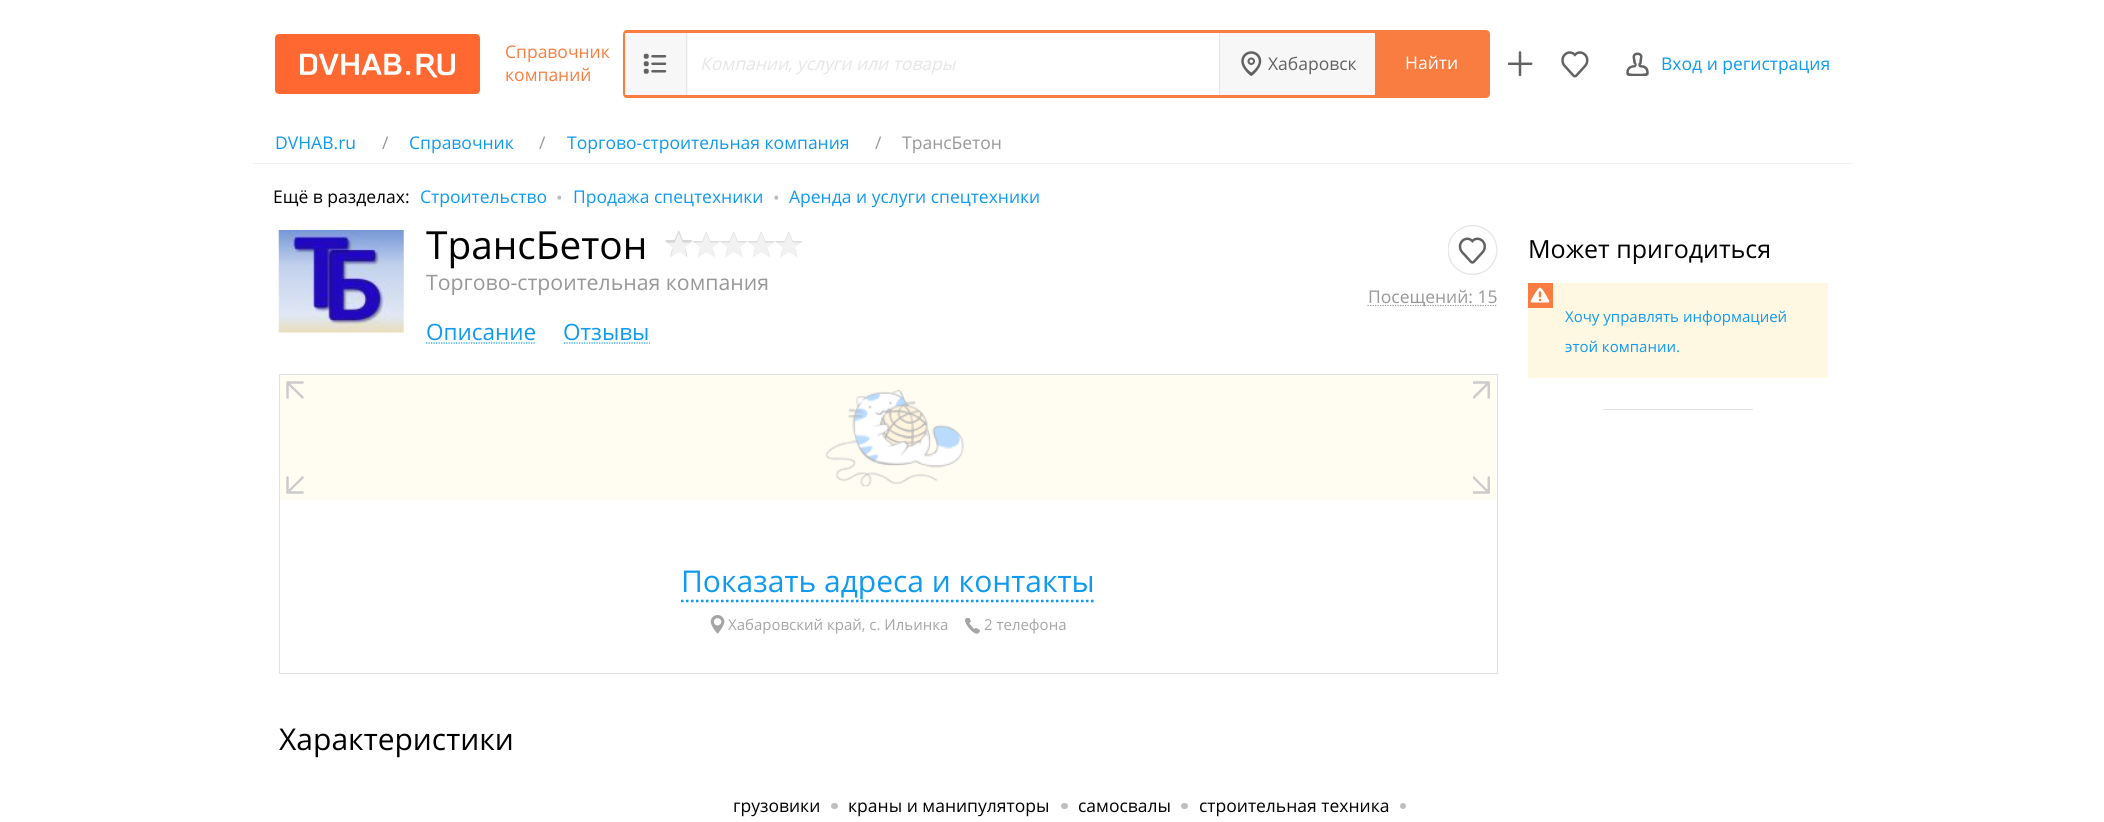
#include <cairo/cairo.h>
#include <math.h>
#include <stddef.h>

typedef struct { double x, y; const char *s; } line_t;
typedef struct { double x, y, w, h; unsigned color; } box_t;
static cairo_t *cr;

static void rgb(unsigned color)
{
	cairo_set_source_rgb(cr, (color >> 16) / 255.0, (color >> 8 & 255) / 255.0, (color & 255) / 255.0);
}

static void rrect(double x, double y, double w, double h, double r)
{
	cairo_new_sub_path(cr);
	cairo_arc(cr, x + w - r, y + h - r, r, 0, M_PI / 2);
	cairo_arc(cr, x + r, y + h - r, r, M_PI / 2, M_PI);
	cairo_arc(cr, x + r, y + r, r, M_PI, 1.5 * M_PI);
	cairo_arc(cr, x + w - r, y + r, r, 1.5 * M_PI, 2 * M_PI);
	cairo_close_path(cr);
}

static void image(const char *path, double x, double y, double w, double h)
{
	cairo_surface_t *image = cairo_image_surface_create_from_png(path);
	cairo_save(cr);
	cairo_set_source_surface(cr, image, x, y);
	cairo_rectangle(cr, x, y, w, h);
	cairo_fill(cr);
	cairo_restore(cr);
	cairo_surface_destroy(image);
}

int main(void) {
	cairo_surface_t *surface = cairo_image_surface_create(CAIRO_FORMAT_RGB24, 2104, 822);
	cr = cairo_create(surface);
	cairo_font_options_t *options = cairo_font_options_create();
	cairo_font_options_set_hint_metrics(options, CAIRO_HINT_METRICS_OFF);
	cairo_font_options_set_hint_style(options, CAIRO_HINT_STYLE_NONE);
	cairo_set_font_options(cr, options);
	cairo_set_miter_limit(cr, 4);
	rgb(0xffffff);
	cairo_paint(cr);
	image("img/1.png", 275, 34, 205, 60);
	rrect(624.5, 31.5, 864, 65, 2.5);
	rgb(0xf97d41);
	cairo_set_line_width(cr, 3);
	cairo_stroke(cr);
	rgb(0xf7f7f7);
	cairo_rectangle(cr, 625, 33, 63, 62);
	cairo_fill(cr);
	image("img/2.png", 643, 53, 24, 21);
	{
		static const box_t items[] = {
			{686, 33, 1, 62, 0xe6e6e6},
			{1220, 33, 155, 62, 0xf7f7f7},
			{1219, 33, 1, 62, 0xe6e6e6},
		};
		for (size_t i = 0; i < sizeof items / sizeof *items; i++) {
			rgb(items[i].color);
			cairo_rectangle(cr, items[i].x, items[i].y, items[i].w, items[i].h);
			cairo_fill(cr);
		}
	}
	image("img/3.png", 1241, 51, 21, 25);
	rgb(0xf97d41);
	cairo_rectangle(cr, 1375, 33, 112, 62);
	cairo_fill(cr);
	image("img/4.png", 1508, 51, 25, 25);
	image("img/5.png", 1561, 51, 28, 27);
	image("img/6.png", 1626, 52, 23, 24);
	rgb(0xf2f2f2);
	cairo_rectangle(cr, 253, 163, 1600, 1);
	cairo_fill(cr);
	image("img/7.png", 278, 230, 126, 103);
	image("img/8.png", 665, 230, 138, 28);
	image("img/9.png", 1448, 225, 50, 50);
	cairo_new_path(cr);
	cairo_move_to(cr, 1367.5, 305.5);
	cairo_line_to(cr, 1497.5, 305.5);
	rgb(0x989898);
	cairo_set_line_width(cr, 1.2);
	cairo_set_dash(cr, (double[]){1.25, 1.25}, 2, 0);
	cairo_stroke(cr);
	cairo_new_path(cr);
	cairo_move_to(cr, 426, 343);
	cairo_line_to(cr, 536, 343);
	rgb(0x0f9aef);
	cairo_stroke(cr);
	cairo_new_path(cr);
	cairo_move_to(cr, 564, 343);
	cairo_line_to(cr, 650, 343);
	cairo_stroke(cr);
	cairo_rectangle(cr, 279.5, 374.5, 1218, 299);
	rgb(0xe0e0e0);
	cairo_set_line_width(cr, 1);
	cairo_set_dash(cr, NULL, 0, 0);
	cairo_stroke(cr);
	rgb(0xfffcf2);
	cairo_rectangle(cr, 280, 375, 1216, 125);
	cairo_fill(cr);
	image("img/10.png", 286, 381, 18, 18);
	image("img/11.png", 1473, 381, 17, 18);
	image("img/12.png", 286, 476, 18, 18);
	image("img/13.png", 1473, 476, 17, 18);
	image("img/14.png", 826, 390, 138, 97);
	cairo_new_path(cr);
	cairo_move_to(cr, 681, 601);
	cairo_line_to(cr, 1095, 601);
	rgb(0x0f9aef);
	cairo_set_line_width(cr, 2.5);
	cairo_set_dash(cr, (double[]){2.5, 2.5}, 2, 0);
	cairo_stroke(cr);
	image("img/15.png", 710, 615, 15, 19);
	image("img/16.png", 965, 618, 15, 16);
	rgb(0xbfbfbf);
	rrect(831, 803, 7, 6, 3);
	cairo_fill(cr);
	rrect(1061, 803, 7, 6, 3);
	cairo_fill(cr);
	rrect(1181, 803, 7, 6, 3);
	cairo_fill(cr);
	cairo_arc(cr, 1403, 806, 3, 0, 2 * M_PI);
	cairo_fill(cr);
	rgb(0xfef7e1);
	cairo_rectangle(cr, 1528, 283, 300, 95);
	cairo_fill(cr);
	rgb(0xf97d41);
	cairo_rectangle(cr, 1528, 283, 25, 25);
	cairo_fill(cr);
	image("img/17.png", 1530, 287, 20, 16);
	rgb(0xe1e1e1);
	cairo_rectangle(cr, 1603, 409, 150, 1);
	cairo_fill(cr);
	cairo_select_font_face(cr, "Open Sans", CAIRO_FONT_SLANT_NORMAL, CAIRO_FONT_WEIGHT_NORMAL);
	cairo_set_font_size(cr, 17.5);
	rgb(0xf97d41);
	cairo_move_to(cr, 505, 58);
	cairo_show_text(cr, "Справочник");
	cairo_move_to(cr, 505, 81);
	cairo_show_text(cr, "компаний");
	cairo_select_font_face(cr, "Open Sans", CAIRO_FONT_SLANT_ITALIC, CAIRO_FONT_WEIGHT_NORMAL);
	rgb(0xe6e6e6);
	cairo_move_to(cr, 700, 70);
	cairo_show_text(cr, "Компании, услуги или товары");
	cairo_select_font_face(cr, "Open Sans", CAIRO_FONT_SLANT_NORMAL, CAIRO_FONT_WEIGHT_NORMAL);
	rgb(0x626262);
	cairo_move_to(cr, 1268, 70);
	cairo_show_text(cr, "Хабаровск");
	rgb(0xffffff);
	cairo_move_to(cr, 1405, 69);
	cairo_show_text(cr, "Найти");
	rgb(0x0f9aef);
	cairo_move_to(cr, 1661, 70);
	cairo_show_text(cr, "Вход и регистрация");
	cairo_move_to(cr, 275, 149);
	cairo_show_text(cr, "DVHAB.ru");
	rgb(0x989898);
	cairo_move_to(cr, 382, 149);
	cairo_show_text(cr, "/");
	rgb(0x0f9aef);
	cairo_move_to(cr, 409, 149);
	cairo_show_text(cr, "Справочник");
	rgb(0x989898);
	cairo_move_to(cr, 539, 149);
	cairo_show_text(cr, "/");
	rgb(0x0f9aef);
	cairo_move_to(cr, 567, 149);
	cairo_show_text(cr, "Торгово-строительная компания");
	rgb(0x989898);
	cairo_move_to(cr, 875, 149);
	cairo_show_text(cr, "/");
	cairo_move_to(cr, 902, 149);
	cairo_show_text(cr, "ТрансБетон");
	rgb(0x000000);
	cairo_move_to(cr, 273, 203);
	cairo_show_text(cr, "Ещё в разделах:");
	rgb(0x0f9aef);
	cairo_move_to(cr, 420, 203);
	cairo_show_text(cr, "Строительство");
	rgb(0xbbbbbb);
	cairo_move_to(cr, 556, 204);
	cairo_show_text(cr, "•");
	rgb(0x0f9aef);
	cairo_move_to(cr, 573, 203);
	cairo_show_text(cr, "Продажа спецтехники");
	rgb(0xbbbbbb);
	cairo_move_to(cr, 773, 204);
	cairo_show_text(cr, "•");
	rgb(0x0f9aef);
	cairo_move_to(cr, 789, 203);
	cairo_show_text(cr, "Аренда и услуги спецтехники");
	cairo_set_font_size(cr, 38.75);
	rgb(0x000000);
	cairo_move_to(cr, 426, 259);
	cairo_show_text(cr, "ТрансБетон");
	cairo_set_font_size(cr, 21.25);
	rgb(0x989898);
	cairo_move_to(cr, 426, 290);
	cairo_show_text(cr, "Торгово-строительная компания");
	cairo_set_font_size(cr, 17.5);
	cairo_move_to(cr, 1368, 303);
	cairo_show_text(cr, "Посещений: 15");
	cairo_set_font_size(cr, 22.5);
	rgb(0x0f9aef);
	cairo_move_to(cr, 426, 340);
	cairo_show_text(cr, "Описание");
	cairo_move_to(cr, 563, 340);
	cairo_show_text(cr, "Отзывы");
	cairo_set_font_size(cr, 30);
	cairo_move_to(cr, 681, 592);
	cairo_show_text(cr, "Показать адреса и контакты");
	cairo_set_font_size(cr, 15);
	rgb(0xa5a5a5);
	cairo_move_to(cr, 728, 630);
	cairo_show_text(cr, "Хабаровский край, с. Ильинка");
	cairo_move_to(cr, 984, 630);
	cairo_show_text(cr, "2 телефона");
	cairo_set_font_size(cr, 30);
	rgb(0x000000);
	cairo_move_to(cr, 279, 750);
	cairo_show_text(cr, "Характеристики");
	cairo_set_font_size(cr, 17.5);
	{
		static const line_t items[] = {
			{733, 812, "грузовики"},
			{848, 812, "краны и манипуляторы"},
			{1078, 812, "самосвалы"},
			{1199, 812, "строительная техника"},
		};
		for (size_t i = 0; i < sizeof items / sizeof *items; i++) {
			cairo_move_to(cr, items[i].x, items[i].y);
			cairo_show_text(cr, items[i].s);
		}
	}
	cairo_set_font_size(cr, 25);
	cairo_move_to(cr, 1528, 258);
	cairo_show_text(cr, "Может пригодиться");
	cairo_set_font_size(cr, 15);
	rgb(0x0f9aef);
	cairo_move_to(cr, 1565, 322);
	cairo_show_text(cr, "Хочу управлять информацией");
	cairo_move_to(cr, 1565, 352);
	cairo_show_text(cr, "этой компании.");
	cairo_surface_write_to_png(surface, "page.png");
	cairo_font_options_destroy(options);
	cairo_destroy(cr);
	cairo_surface_destroy(surface);
	return 0;
}
